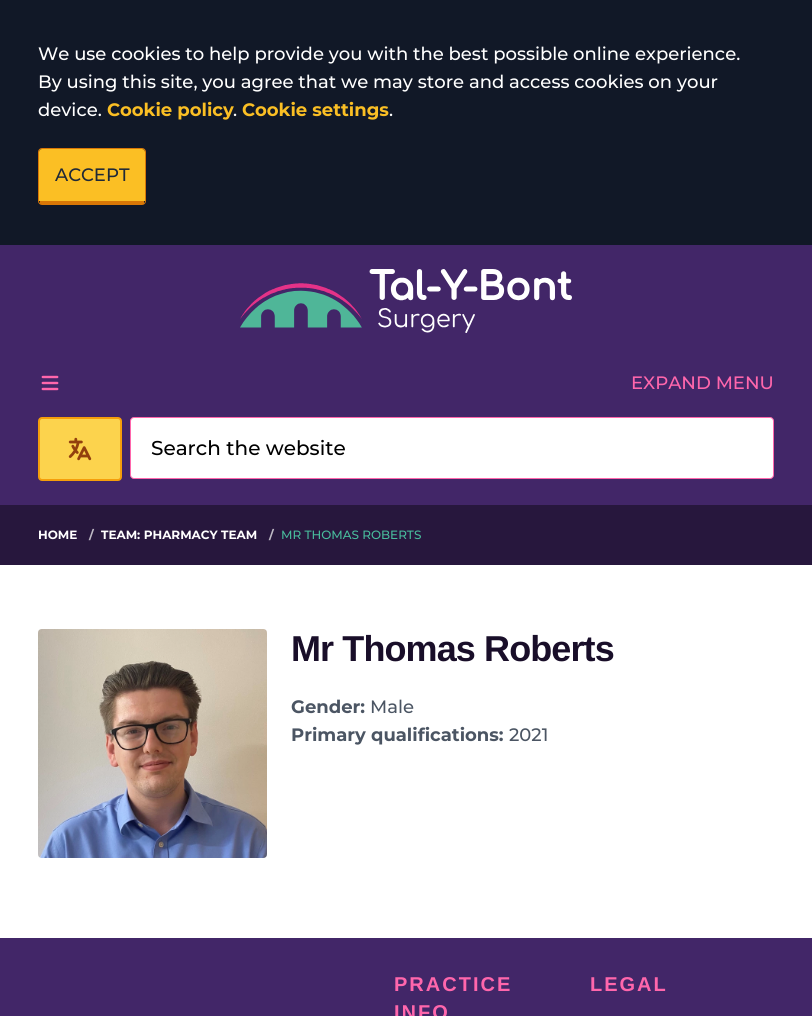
#include <cairo/cairo.h>
#include <math.h>
#include <stddef.h>

typedef struct { double x, y; const char *s; } line_t;
static cairo_t *cr;

static void rgb(unsigned color)
{
	cairo_set_source_rgb(cr, (color >> 16) / 255.0, (color >> 8 & 255) / 255.0, (color & 255) / 255.0);
}

static void tracked(double x, double y, const char *s, double letter, double word)
{
	cairo_move_to(cr, x, y);
	while (*s) {
		char ch[5] = {0};
		int n = 0;
		do ch[n++] = *s++; while ((*s & 0xC0) == 0x80);
		cairo_show_text(cr, ch);
		cairo_rel_move_to(cr, letter + word * (*ch == ' '), 0);
	}
}

static void rrect(double x, double y, double w, double h, double r)
{
	cairo_new_sub_path(cr);
	cairo_arc(cr, x + w - r, y + h - r, r, 0, M_PI / 2);
	cairo_arc(cr, x + r, y + h - r, r, M_PI / 2, M_PI);
	cairo_arc(cr, x + r, y + r, r, M_PI, 1.5 * M_PI);
	cairo_arc(cr, x + w - r, y + r, r, 1.5 * M_PI, 2 * M_PI);
	cairo_close_path(cr);
}

static void image(const char *path, double x, double y, double w, double h)
{
	cairo_surface_t *image = cairo_image_surface_create_from_png(path);
	cairo_save(cr);
	cairo_set_source_surface(cr, image, x, y);
	cairo_rectangle(cr, x, y, w, h);
	cairo_fill(cr);
	cairo_restore(cr);
	cairo_surface_destroy(image);
}

int main(void) {
	cairo_surface_t *surface = cairo_image_surface_create(CAIRO_FORMAT_RGB24, 812, 1016);
	cr = cairo_create(surface);
	cairo_font_options_t *options = cairo_font_options_create();
	cairo_font_options_set_hint_metrics(options, CAIRO_HINT_METRICS_OFF);
	cairo_font_options_set_hint_style(options, CAIRO_HINT_STYLE_NONE);
	cairo_set_font_options(cr, options);
	cairo_set_miter_limit(cr, 4);
	rgb(0x27173d);
	cairo_paint(cr);
	rgb(0x111827);
	cairo_rectangle(cr, 0, 0, 812, 245);
	cairo_fill(cr);
	rgb(0xfbbf24);
	cairo_new_path(cr);
	cairo_move_to(cr, 42, 149);
	cairo_line_to(cr, 142, 149);
	cairo_curve_to(cr, 144, 149, 145, 150, 145, 152);
	cairo_line_to(cr, 145, 201);
	cairo_line_to(cr, 39, 201);
	cairo_line_to(cr, 39, 152);
	cairo_curve_to(cr, 39, 150, 40, 149, 42, 149);
	cairo_close_path(cr);
	cairo_fill(cr);
	rrect(38.5, 148.5, 107, 56, 3.5);
	rgb(0xd97706);
	cairo_set_line_width(cr, 1);
	cairo_stroke(cr);
	cairo_rectangle(cr, 40, 201, 104, 3);
	cairo_fill(cr);
	rgb(0x422668);
	cairo_rectangle(cr, 0, 245, 812, 260);
	cairo_fill(cr);
	image("img/1.png", 240, 269, 332, 64);
	image("img/2.png", 41, 375, 18, 16);
	rgb(0xfcd34d);
	rrect(39, 418, 82, 62, 3);
	cairo_fill_preserve(cr);
	rgb(0xf59e0b);
	cairo_set_line_width(cr, 2);
	cairo_stroke(cr);
	image("img/3.png", 68, 437, 24, 24);
	rgb(0xffffff);
	rrect(130.5, 417.5, 643, 61, 3.5);
	cairo_fill_preserve(cr);
	rgb(0xff66ac);
	cairo_set_line_width(cr, 1);
	cairo_stroke(cr);
	rgb(0xffffff);
	cairo_rectangle(cr, 0, 565, 812, 373);
	cairo_fill(cr);
	image("img/4.png", 38, 629, 229, 229);
	rgb(0x422668);
	cairo_rectangle(cr, 0, 938, 812, 78);
	cairo_fill(cr);
	cairo_select_font_face(cr, "Montserrat Medium", CAIRO_FONT_SLANT_NORMAL, CAIRO_FONT_WEIGHT_NORMAL);
	cairo_set_font_size(cr, 18);
	rgb(0xffffff);
	{
		static const line_t items[] = {
			{38, 60, "We use cookies to help provide you with the best possible online experience."},
			{38, 88, "By using this site, you agree that we may store and access cookies on your"},
			{38, 116, "device."},
		};
		for (size_t i = 0; i < sizeof items / sizeof *items; i++) {
			cairo_move_to(cr, items[i].x, items[i].y);
			cairo_show_text(cr, items[i].s);
		}
	}
	cairo_select_font_face(cr, "Montserrat", CAIRO_FONT_SLANT_NORMAL, CAIRO_FONT_WEIGHT_BOLD);
	rgb(0xfbbf24);
	cairo_move_to(cr, 107, 116);
	cairo_show_text(cr, "Cookie policy");
	cairo_select_font_face(cr, "Montserrat Medium", CAIRO_FONT_SLANT_NORMAL, CAIRO_FONT_WEIGHT_NORMAL);
	rgb(0xffffff);
	cairo_move_to(cr, 233, 116);
	cairo_show_text(cr, ".");
	cairo_select_font_face(cr, "Montserrat", CAIRO_FONT_SLANT_NORMAL, CAIRO_FONT_WEIGHT_BOLD);
	rgb(0xfbbf24);
	cairo_move_to(cr, 242, 116);
	cairo_show_text(cr, "Cookie settings");
	cairo_select_font_face(cr, "Montserrat Medium", CAIRO_FONT_SLANT_NORMAL, CAIRO_FONT_WEIGHT_NORMAL);
	rgb(0xffffff);
	cairo_move_to(cr, 389, 116);
	cairo_show_text(cr, ".");
	rgb(0x1f2937);
	cairo_move_to(cr, 55, 181);
	cairo_show_text(cr, "ACCEPT");
	rgb(0xff66ac);
	cairo_move_to(cr, 631, 389);
	cairo_show_text(cr, "EXPAND MENU");
	cairo_set_font_size(cr, 20);
	rgb(0x000000);
	cairo_move_to(cr, 151, 455);
	cairo_show_text(cr, "Search the website");
	cairo_select_font_face(cr, "Montserrat", CAIRO_FONT_SLANT_NORMAL, CAIRO_FONT_WEIGHT_BOLD);
	cairo_set_font_size(cr, 12);
	rgb(0xffffff);
	cairo_move_to(cr, 38, 539);
	cairo_show_text(cr, "HOME");
	rgb(0xbeb9c5);
	cairo_move_to(cr, 89, 539);
	cairo_show_text(cr, "/");
	rgb(0xffffff);
	cairo_move_to(cr, 101, 539);
	cairo_show_text(cr, "TEAM: PHARMACY TEAM");
	rgb(0xbeb9c5);
	cairo_move_to(cr, 269, 539);
	cairo_show_text(cr, "/");
	cairo_select_font_face(cr, "Montserrat Medium", CAIRO_FONT_SLANT_NORMAL, CAIRO_FONT_WEIGHT_NORMAL);
	rgb(0x48bc9c);
	cairo_move_to(cr, 281, 539);
	cairo_show_text(cr, "MR THOMAS ROBERTS");
	cairo_select_font_face(cr, "Liberation Sans", CAIRO_FONT_SLANT_NORMAL, CAIRO_FONT_WEIGHT_BOLD);
	cairo_set_font_size(cr, 36);
	rgb(0x190e29);
	tracked(291, 661, "Mr Thomas Roberts", -0.9, 0);
	cairo_select_font_face(cr, "Montserrat", CAIRO_FONT_SLANT_NORMAL, CAIRO_FONT_WEIGHT_BOLD);
	cairo_set_font_size(cr, 18);
	rgb(0x4b5563);
	cairo_move_to(cr, 291, 713);
	cairo_show_text(cr, "Gender:");
	cairo_select_font_face(cr, "Montserrat Medium", CAIRO_FONT_SLANT_NORMAL, CAIRO_FONT_WEIGHT_NORMAL);
	cairo_move_to(cr, 370, 713);
	cairo_show_text(cr, "Male");
	cairo_select_font_face(cr, "Montserrat", CAIRO_FONT_SLANT_NORMAL, CAIRO_FONT_WEIGHT_BOLD);
	cairo_move_to(cr, 291, 741);
	cairo_show_text(cr, "Primary qualifications:");
	cairo_select_font_face(cr, "Montserrat Medium", CAIRO_FONT_SLANT_NORMAL, CAIRO_FONT_WEIGHT_NORMAL);
	cairo_move_to(cr, 509, 741);
	cairo_show_text(cr, "2021");
	cairo_select_font_face(cr, "Liberation Sans", CAIRO_FONT_SLANT_NORMAL, CAIRO_FONT_WEIGHT_BOLD);
	cairo_set_font_size(cr, 20);
	rgb(0xff66ac);
	{
		static const line_t items[] = {
			{394, 991, "PRACTICE"},
			{394, 1019, "INFO"},
			{590, 991, "LEGAL"},
		};
		for (size_t i = 0; i < sizeof items / sizeof *items; i++) {
			tracked(items[i].x, items[i].y, items[i].s, 2, 0);
		}
	}
	cairo_surface_write_to_png(surface, "page.png");
	cairo_font_options_destroy(options);
	cairo_destroy(cr);
	cairo_surface_destroy(surface);
	return 0;
}
